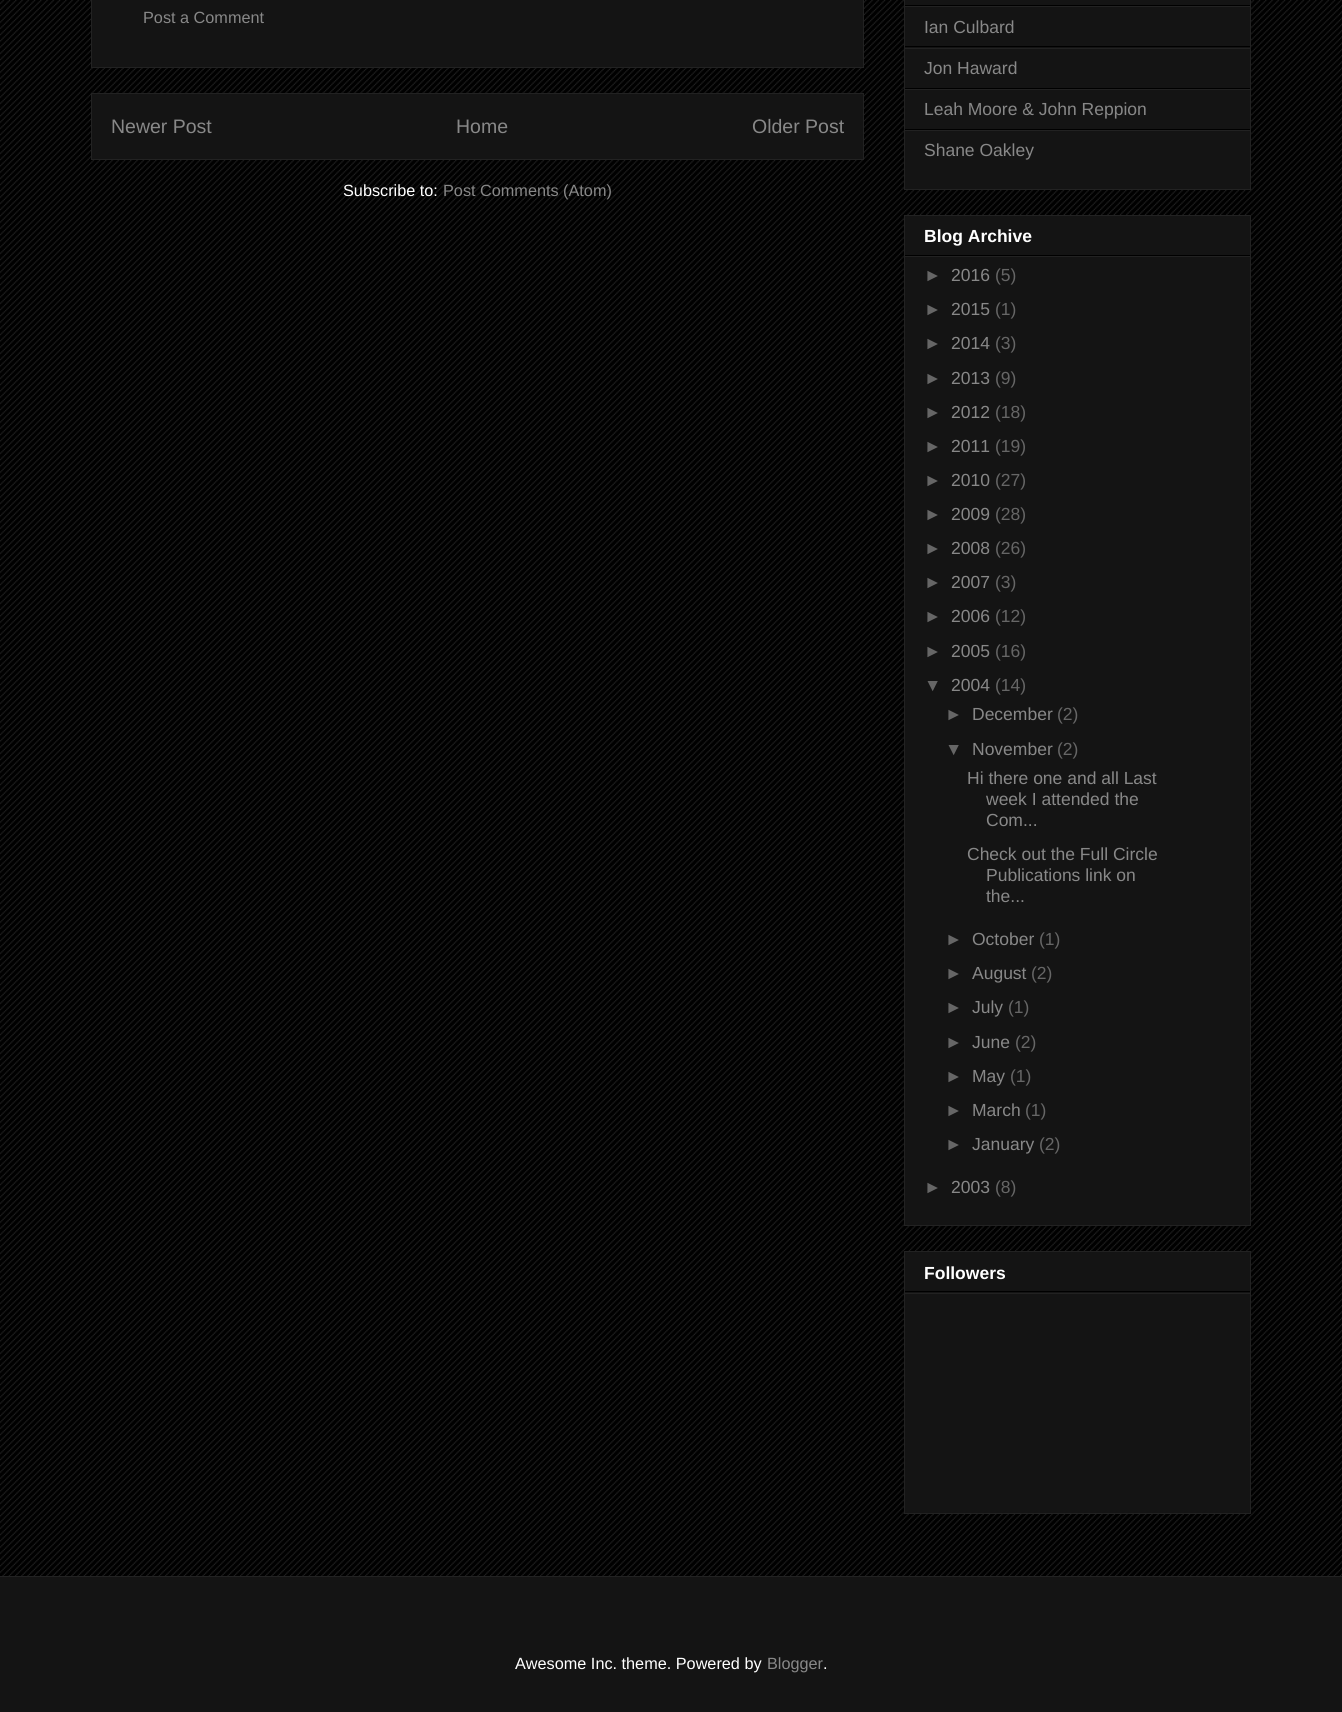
#include <cairo/cairo.h>
#include <math.h>
#include <stddef.h>

typedef struct { double x, y; const char *s; } line_t;
typedef struct { double x, y, w, h; unsigned color; } box_t;
static cairo_t *cr;

static void rgb(unsigned color)
{
	cairo_set_source_rgb(cr, (color >> 16) / 255.0, (color >> 8 & 255) / 255.0, (color & 255) / 255.0);
}

static void image(const char *path, double x, double y, double w, double h)
{
	cairo_surface_t *image = cairo_image_surface_create_from_png(path);
	cairo_save(cr);
	cairo_set_source_surface(cr, image, x, y);
	cairo_rectangle(cr, x, y, w, h);
	cairo_fill(cr);
	cairo_restore(cr);
	cairo_surface_destroy(image);
}

int main(void) {
	cairo_surface_t *surface = cairo_image_surface_create(CAIRO_FORMAT_RGB24, 1342, 1712);
	cr = cairo_create(surface);
	cairo_font_options_t *options = cairo_font_options_create();
	cairo_font_options_set_hint_metrics(options, CAIRO_HINT_METRICS_OFF);
	cairo_font_options_set_hint_style(options, CAIRO_HINT_STYLE_NONE);
	cairo_set_font_options(cr, options);
	cairo_set_miter_limit(cr, 4);
	rgb(0x000000);
	cairo_paint(cr);
	image("img/1.png", 0, 0, 1342, 1576);
	rgb(0x141414);
	cairo_rectangle(cr, 91.5, -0.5, 772, 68);
	cairo_fill_preserve(cr);
	rgb(0x222222);
	cairo_set_line_width(cr, 1);
	cairo_stroke(cr);
	rgb(0x141414);
	cairo_rectangle(cr, 91.5, 93.5, 772, 66);
	cairo_fill_preserve(cr);
	rgb(0x222222);
	cairo_stroke(cr);
	rgb(0x141414);
	cairo_rectangle(cr, 904.5, -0.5, 346, 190);
	cairo_fill_preserve(cr);
	rgb(0x222222);
	cairo_stroke(cr);
	{
		static const box_t items[] = {
			{905, 5, 345, 1, 0x000000},
			{905, 6, 345, 1, 0x222222},
			{905, 46, 345, 1, 0x000000},
			{905, 48, 345, 1, 0x222222},
			{905, 88, 345, 1, 0x000000},
			{905, 89, 345, 1, 0x222222},
			{905, 129, 345, 1, 0x000000},
			{905, 130, 345, 1, 0x222222},
		};
		for (size_t i = 0; i < sizeof items / sizeof *items; i++) {
			rgb(items[i].color);
			cairo_rectangle(cr, items[i].x, items[i].y, items[i].w, items[i].h);
			cairo_fill(cr);
		}
	}
	rgb(0x141414);
	cairo_rectangle(cr, 904.5, 215.5, 346, 1010);
	cairo_fill_preserve(cr);
	rgb(0x222222);
	cairo_stroke(cr);
	rgb(0x000000);
	cairo_rectangle(cr, 905, 255, 345, 1);
	cairo_fill(cr);
	rgb(0x222222);
	cairo_rectangle(cr, 905, 256, 345, 1);
	cairo_fill(cr);
	rgb(0x141414);
	cairo_rectangle(cr, 904.5, 1251.5, 346, 262);
	cairo_fill_preserve(cr);
	rgb(0x222222);
	cairo_stroke(cr);
	{
		static const box_t items[] = {
			{905, 1291, 345, 1, 0x000000},
			{905, 1293, 345, 1, 0x222222},
			{0, 1577, 1342, 135, 0x141414},
			{0, 1576, 1342, 1, 0x222222},
		};
		for (size_t i = 0; i < sizeof items / sizeof *items; i++) {
			rgb(items[i].color);
			cairo_rectangle(cr, items[i].x, items[i].y, items[i].w, items[i].h);
			cairo_fill(cr);
		}
	}
	cairo_select_font_face(cr, "Liberation Sans", CAIRO_FONT_SLANT_NORMAL, CAIRO_FONT_WEIGHT_NORMAL);
	cairo_set_font_size(cr, 16.25);
	rgb(0x888888);
	cairo_move_to(cr, 143, 23);
	cairo_show_text(cr, "Post a Comment");
	cairo_set_font_size(cr, 19.5);
	{
		static const line_t items[] = {
			{111, 133, "Newer Post"},
			{456, 133, "Home"},
			{752, 133, "Older Post"},
		};
		for (size_t i = 0; i < sizeof items / sizeof *items; i++) {
			cairo_move_to(cr, items[i].x, items[i].y);
			cairo_show_text(cr, items[i].s);
		}
	}
	cairo_set_font_size(cr, 16.25);
	rgb(0xffffff);
	cairo_move_to(cr, 343, 196);
	cairo_show_text(cr, "Subscribe to:");
	rgb(0x888888);
	cairo_move_to(cr, 443, 196);
	cairo_show_text(cr, "Post Comments (Atom)");
	cairo_set_font_size(cr, 17.5);
	{
		static const line_t items[] = {
			{924, 33, "Ian Culbard"},
			{924, 74, "Jon Haward"},
			{924, 115, "Leah Moore & John Reppion"},
			{924, 156, "Shane Oakley"},
		};
		for (size_t i = 0; i < sizeof items / sizeof *items; i++) {
			cairo_move_to(cr, items[i].x, items[i].y);
			cairo_show_text(cr, items[i].s);
		}
	}
	cairo_select_font_face(cr, "Liberation Sans", CAIRO_FONT_SLANT_NORMAL, CAIRO_FONT_WEIGHT_BOLD);
	rgb(0xffffff);
	cairo_move_to(cr, 924, 242);
	cairo_show_text(cr, "Blog Archive");
	cairo_select_font_face(cr, "Liberation Sans", CAIRO_FONT_SLANT_NORMAL, CAIRO_FONT_WEIGHT_NORMAL);
	rgb(0x666666);
	cairo_move_to(cr, 924, 281);
	cairo_show_text(cr, "►");
	rgb(0x888888);
	cairo_move_to(cr, 951, 281);
	cairo_show_text(cr, "2016");
	rgb(0x666666);
	cairo_move_to(cr, 995, 281);
	cairo_show_text(cr, "(5)");
	cairo_move_to(cr, 924, 315);
	cairo_show_text(cr, "►");
	rgb(0x888888);
	cairo_move_to(cr, 951, 315);
	cairo_show_text(cr, "2015");
	rgb(0x666666);
	cairo_move_to(cr, 995, 315);
	cairo_show_text(cr, "(1)");
	cairo_move_to(cr, 924, 349);
	cairo_show_text(cr, "►");
	rgb(0x888888);
	cairo_move_to(cr, 951, 349);
	cairo_show_text(cr, "2014");
	rgb(0x666666);
	cairo_move_to(cr, 995, 349);
	cairo_show_text(cr, "(3)");
	cairo_move_to(cr, 924, 384);
	cairo_show_text(cr, "►");
	rgb(0x888888);
	cairo_move_to(cr, 951, 384);
	cairo_show_text(cr, "2013");
	rgb(0x666666);
	cairo_move_to(cr, 995, 384);
	cairo_show_text(cr, "(9)");
	cairo_move_to(cr, 924, 418);
	cairo_show_text(cr, "►");
	rgb(0x888888);
	cairo_move_to(cr, 951, 418);
	cairo_show_text(cr, "2012");
	rgb(0x666666);
	cairo_move_to(cr, 995, 418);
	cairo_show_text(cr, "(18)");
	cairo_move_to(cr, 924, 452);
	cairo_show_text(cr, "►");
	rgb(0x888888);
	cairo_move_to(cr, 951, 452);
	cairo_show_text(cr, "2011");
	rgb(0x666666);
	cairo_move_to(cr, 995, 452);
	cairo_show_text(cr, "(19)");
	cairo_move_to(cr, 924, 486);
	cairo_show_text(cr, "►");
	rgb(0x888888);
	cairo_move_to(cr, 951, 486);
	cairo_show_text(cr, "2010");
	rgb(0x666666);
	cairo_move_to(cr, 995, 486);
	cairo_show_text(cr, "(27)");
	cairo_move_to(cr, 924, 520);
	cairo_show_text(cr, "►");
	rgb(0x888888);
	cairo_move_to(cr, 951, 520);
	cairo_show_text(cr, "2009");
	rgb(0x666666);
	cairo_move_to(cr, 995, 520);
	cairo_show_text(cr, "(28)");
	cairo_move_to(cr, 924, 554);
	cairo_show_text(cr, "►");
	rgb(0x888888);
	cairo_move_to(cr, 951, 554);
	cairo_show_text(cr, "2008");
	rgb(0x666666);
	cairo_move_to(cr, 995, 554);
	cairo_show_text(cr, "(26)");
	cairo_move_to(cr, 924, 588);
	cairo_show_text(cr, "►");
	rgb(0x888888);
	cairo_move_to(cr, 951, 588);
	cairo_show_text(cr, "2007");
	rgb(0x666666);
	cairo_move_to(cr, 995, 588);
	cairo_show_text(cr, "(3)");
	cairo_move_to(cr, 924, 622);
	cairo_show_text(cr, "►");
	rgb(0x888888);
	cairo_move_to(cr, 951, 622);
	cairo_show_text(cr, "2006");
	rgb(0x666666);
	cairo_move_to(cr, 995, 622);
	cairo_show_text(cr, "(12)");
	cairo_move_to(cr, 924, 657);
	cairo_show_text(cr, "►");
	rgb(0x888888);
	cairo_move_to(cr, 951, 657);
	cairo_show_text(cr, "2005");
	rgb(0x666666);
	cairo_move_to(cr, 995, 657);
	cairo_show_text(cr, "(16)");
	cairo_move_to(cr, 924, 691);
	cairo_show_text(cr, "▼");
	rgb(0x888888);
	cairo_move_to(cr, 951, 691);
	cairo_show_text(cr, "2004");
	rgb(0x666666);
	cairo_move_to(cr, 995, 691);
	cairo_show_text(cr, "(14)");
	cairo_move_to(cr, 945, 720);
	cairo_show_text(cr, "►");
	rgb(0x888888);
	cairo_move_to(cr, 972, 720);
	cairo_show_text(cr, "December");
	rgb(0x666666);
	cairo_move_to(cr, 1057, 720);
	cairo_show_text(cr, "(2)");
	cairo_move_to(cr, 945, 755);
	cairo_show_text(cr, "▼");
	rgb(0x888888);
	cairo_move_to(cr, 972, 755);
	cairo_show_text(cr, "November");
	rgb(0x666666);
	cairo_move_to(cr, 1057, 755);
	cairo_show_text(cr, "(2)");
	rgb(0x888888);
	{
		static const line_t items[] = {
			{967, 784, "Hi there one and all Last"},
			{986, 805, "week I attended the"},
			{986, 826, "Com..."},
			{967, 860, "Check out the Full Circle"},
			{986, 881, "Publications link on"},
			{986, 902, "the..."},
		};
		for (size_t i = 0; i < sizeof items / sizeof *items; i++) {
			cairo_move_to(cr, items[i].x, items[i].y);
			cairo_show_text(cr, items[i].s);
		}
	}
	rgb(0x666666);
	cairo_move_to(cr, 945, 945);
	cairo_show_text(cr, "►");
	rgb(0x888888);
	cairo_move_to(cr, 972, 945);
	cairo_show_text(cr, "October");
	rgb(0x666666);
	cairo_move_to(cr, 1039, 945);
	cairo_show_text(cr, "(1)");
	cairo_move_to(cr, 945, 979);
	cairo_show_text(cr, "►");
	rgb(0x888888);
	cairo_move_to(cr, 972, 979);
	cairo_show_text(cr, "August");
	rgb(0x666666);
	cairo_move_to(cr, 1031, 979);
	cairo_show_text(cr, "(2)");
	cairo_move_to(cr, 945, 1013);
	cairo_show_text(cr, "►");
	rgb(0x888888);
	cairo_move_to(cr, 972, 1013);
	cairo_show_text(cr, "July");
	rgb(0x666666);
	cairo_move_to(cr, 1008, 1013);
	cairo_show_text(cr, "(1)");
	cairo_move_to(cr, 945, 1048);
	cairo_show_text(cr, "►");
	rgb(0x888888);
	cairo_move_to(cr, 972, 1048);
	cairo_show_text(cr, "June");
	rgb(0x666666);
	cairo_move_to(cr, 1015, 1048);
	cairo_show_text(cr, "(2)");
	cairo_move_to(cr, 945, 1082);
	cairo_show_text(cr, "►");
	rgb(0x888888);
	cairo_move_to(cr, 972, 1082);
	cairo_show_text(cr, "May");
	rgb(0x666666);
	cairo_move_to(cr, 1010, 1082);
	cairo_show_text(cr, "(1)");
	cairo_move_to(cr, 945, 1116);
	cairo_show_text(cr, "►");
	rgb(0x888888);
	cairo_move_to(cr, 972, 1116);
	cairo_show_text(cr, "March");
	rgb(0x666666);
	cairo_move_to(cr, 1025, 1116);
	cairo_show_text(cr, "(1)");
	cairo_move_to(cr, 945, 1150);
	cairo_show_text(cr, "►");
	rgb(0x888888);
	cairo_move_to(cr, 972, 1150);
	cairo_show_text(cr, "January");
	rgb(0x666666);
	cairo_move_to(cr, 1039, 1150);
	cairo_show_text(cr, "(2)");
	cairo_move_to(cr, 924, 1193);
	cairo_show_text(cr, "►");
	rgb(0x888888);
	cairo_move_to(cr, 951, 1193);
	cairo_show_text(cr, "2003");
	rgb(0x666666);
	cairo_move_to(cr, 995, 1193);
	cairo_show_text(cr, "(8)");
	cairo_select_font_face(cr, "Liberation Sans", CAIRO_FONT_SLANT_NORMAL, CAIRO_FONT_WEIGHT_BOLD);
	rgb(0xffffff);
	cairo_move_to(cr, 924, 1279);
	cairo_show_text(cr, "Followers");
	cairo_select_font_face(cr, "Liberation Sans", CAIRO_FONT_SLANT_NORMAL, CAIRO_FONT_WEIGHT_NORMAL);
	cairo_set_font_size(cr, 16.25);
	cairo_move_to(cr, 515, 1669);
	cairo_show_text(cr, "Awesome Inc. theme. Powered by");
	rgb(0x888888);
	cairo_move_to(cr, 767, 1669);
	cairo_show_text(cr, "Blogger");
	rgb(0xffffff);
	cairo_move_to(cr, 823, 1669);
	cairo_show_text(cr, ".");
	cairo_surface_write_to_png(surface, "page.png");
	cairo_font_options_destroy(options);
	cairo_destroy(cr);
	cairo_surface_destroy(surface);
	return 0;
}
